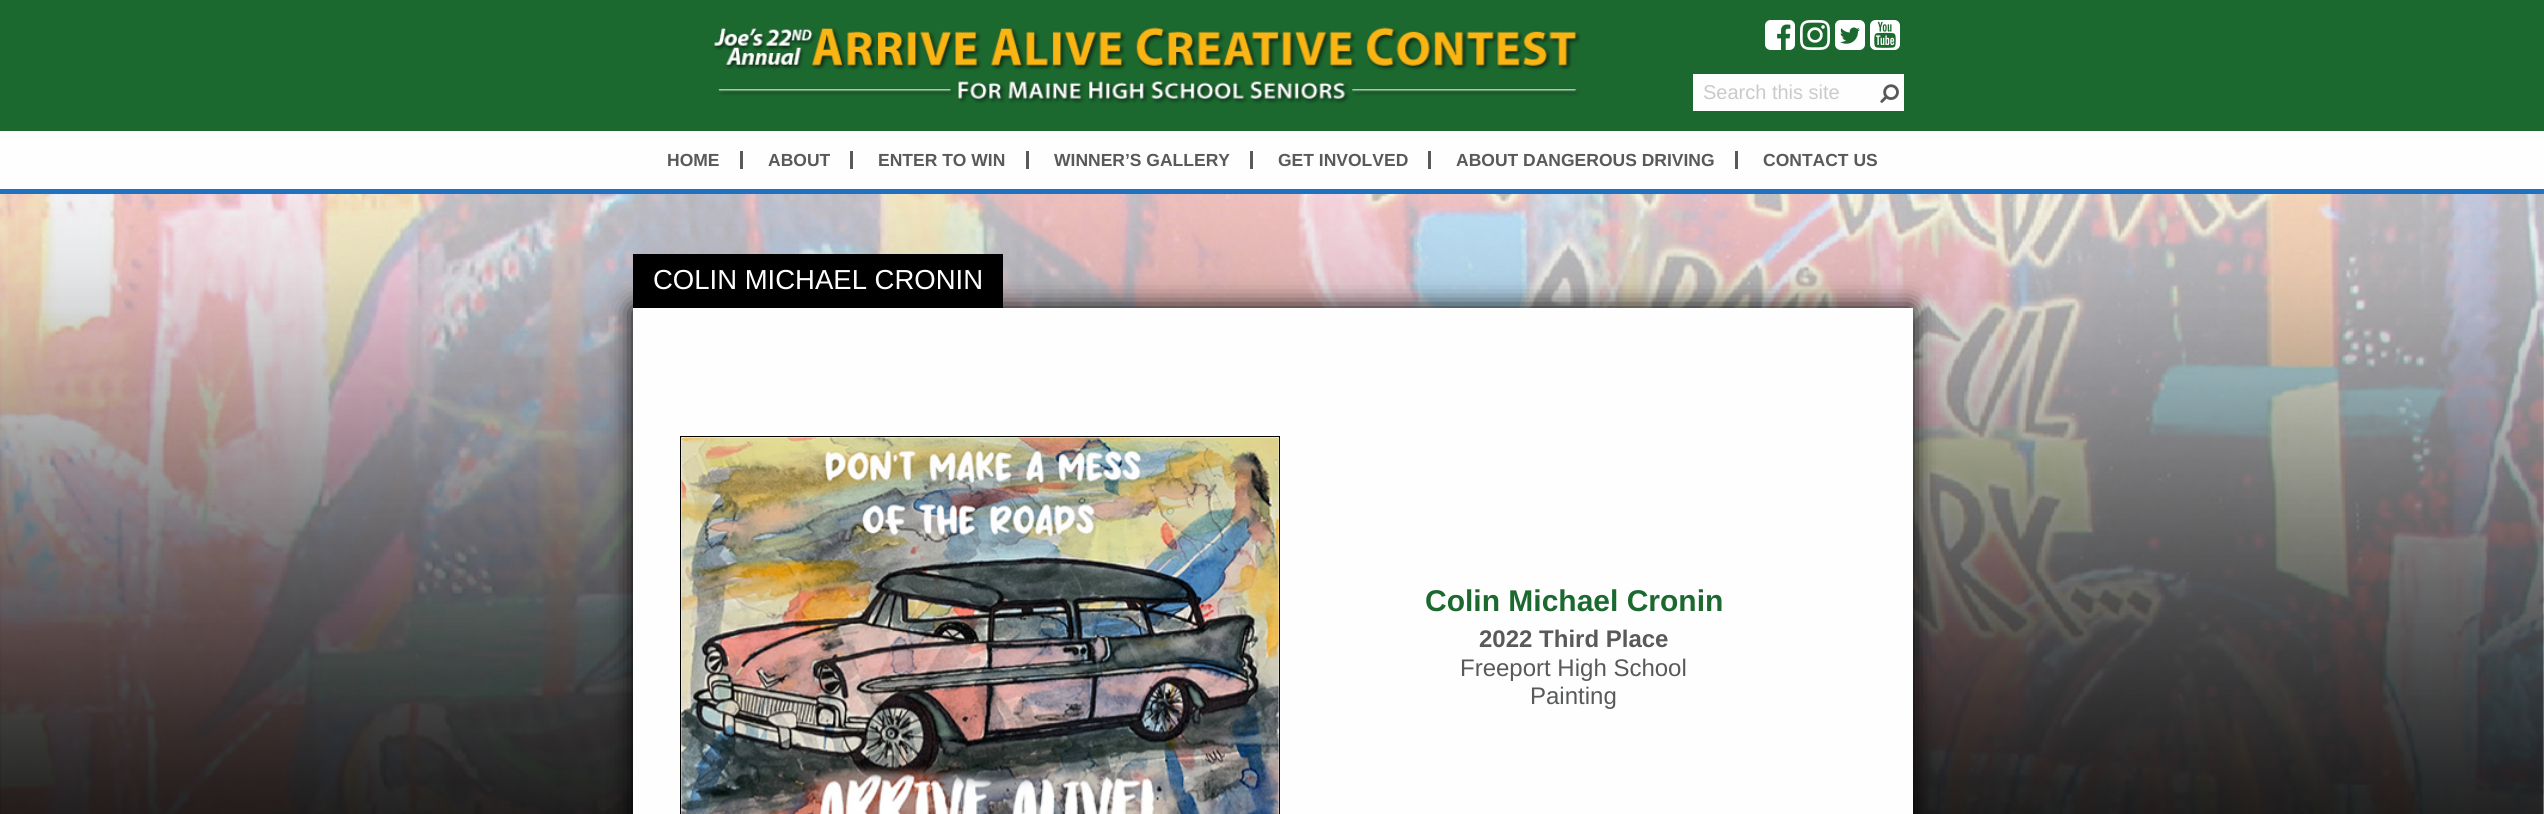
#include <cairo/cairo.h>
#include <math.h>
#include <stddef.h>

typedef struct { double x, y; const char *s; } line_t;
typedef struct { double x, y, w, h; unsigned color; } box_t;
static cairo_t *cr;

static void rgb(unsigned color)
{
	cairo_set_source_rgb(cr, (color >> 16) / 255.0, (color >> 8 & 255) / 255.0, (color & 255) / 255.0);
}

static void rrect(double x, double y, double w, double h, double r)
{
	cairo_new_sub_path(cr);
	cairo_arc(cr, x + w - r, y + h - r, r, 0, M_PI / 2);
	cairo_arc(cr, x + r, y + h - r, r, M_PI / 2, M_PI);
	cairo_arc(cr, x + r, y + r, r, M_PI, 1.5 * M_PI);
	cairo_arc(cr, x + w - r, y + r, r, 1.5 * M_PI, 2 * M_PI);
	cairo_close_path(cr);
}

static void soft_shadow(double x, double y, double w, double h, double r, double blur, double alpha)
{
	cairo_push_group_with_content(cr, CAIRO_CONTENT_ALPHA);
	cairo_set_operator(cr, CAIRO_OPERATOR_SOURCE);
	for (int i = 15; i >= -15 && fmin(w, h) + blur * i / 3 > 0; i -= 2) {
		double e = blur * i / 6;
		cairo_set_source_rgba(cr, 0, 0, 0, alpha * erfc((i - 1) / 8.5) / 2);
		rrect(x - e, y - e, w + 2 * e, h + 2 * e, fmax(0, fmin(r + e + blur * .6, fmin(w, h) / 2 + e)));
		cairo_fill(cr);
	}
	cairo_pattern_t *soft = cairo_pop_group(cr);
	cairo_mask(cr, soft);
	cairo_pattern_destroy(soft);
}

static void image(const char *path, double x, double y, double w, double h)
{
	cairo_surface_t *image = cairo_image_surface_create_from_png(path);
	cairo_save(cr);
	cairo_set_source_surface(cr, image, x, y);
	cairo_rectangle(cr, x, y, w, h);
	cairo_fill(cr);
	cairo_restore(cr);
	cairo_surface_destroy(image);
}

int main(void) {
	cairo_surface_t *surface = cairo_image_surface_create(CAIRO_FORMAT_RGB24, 2544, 814);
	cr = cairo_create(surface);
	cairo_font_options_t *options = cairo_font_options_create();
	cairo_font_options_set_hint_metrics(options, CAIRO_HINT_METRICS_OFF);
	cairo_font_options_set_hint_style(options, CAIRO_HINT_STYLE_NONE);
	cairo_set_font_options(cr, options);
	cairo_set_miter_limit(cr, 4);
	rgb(0xfefefe);
	cairo_paint(cr);
	rgb(0x1e72c1);
	cairo_rectangle(cr, 0, 189, 2544, 5);
	cairo_fill(cr);
	rgb(0x1c692f);
	cairo_rectangle(cr, 0, 0, 2544, 131);
	cairo_fill(cr);
	image("img/1.png", 713, 27, 868, 77);
	image("img/2.png", 1765, 20, 30, 30);
	image("img/3.png", 1800, 20, 30, 30);
	image("img/4.png", 1835, 20, 30, 30);
	image("img/5.png", 1870, 20, 30, 30);
	rgb(0xfefefe);
	cairo_rectangle(cr, 1693, 74, 211, 37);
	cairo_fill(cr);
	image("img/6.png", 1880, 84, 19, 19);
	{
		static const box_t items[] = {
			{740, 151, 3, 18, 0x58595b},
			{850, 151, 3, 18, 0x58595b},
			{1026, 151, 3, 18, 0x58595b},
			{1250, 151, 3, 18, 0x58595b},
			{1428, 151, 3, 18, 0x58595b},
			{1735, 151, 3, 18, 0x58595b},
		};
		for (size_t i = 0; i < sizeof items / sizeof *items; i++) {
			rgb(items[i].color);
			cairo_rectangle(cr, items[i].x, items[i].y, items[i].w, items[i].h);
			cairo_fill(cr);
		}
	}
	image("img/7.png", 0, 194, 2544, 620);
	rgb(0x000000);
	soft_shadow(633, 308, 1280, 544, 0, 12.5, 1);
	rgb(0x000000);
	cairo_rectangle(cr, 633, 254, 370, 54);
	cairo_fill(cr);
	rgb(0xfefefe);
	cairo_rectangle(cr, 633, 308, 1280, 506);
	cairo_fill(cr);
	cairo_rectangle(cr, 680.5, 436.5, 599, 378);
	rgb(0x000000);
	cairo_set_line_width(cr, 1);
	cairo_stroke(cr);
	image("img/8.png", 681, 437, 599, 377);
	cairo_select_font_face(cr, "Liberation Sans", CAIRO_FONT_SLANT_NORMAL, CAIRO_FONT_WEIGHT_NORMAL);
	cairo_set_font_size(cr, 20);
	rgb(0xcacaca);
	cairo_move_to(cr, 1703, 99);
	cairo_show_text(cr, "Search this site");
	cairo_select_font_face(cr, "Liberation Sans", CAIRO_FONT_SLANT_NORMAL, CAIRO_FONT_WEIGHT_BOLD);
	cairo_set_font_size(cr, 17.5);
	rgb(0x58595b);
	{
		static const line_t items[] = {
			{667, 166, "HOME"},
			{768, 166, "ABOUT"},
			{878, 166, "ENTER TO WIN"},
			{1054, 166, "WINNER’S GALLERY"},
			{1278, 166, "GET INVOLVED"},
			{1456, 166, "ABOUT DANGEROUS DRIVING"},
			{1763, 166, "CONTACT US"},
		};
		for (size_t i = 0; i < sizeof items / sizeof *items; i++) {
			cairo_move_to(cr, items[i].x, items[i].y);
			cairo_show_text(cr, items[i].s);
		}
	}
	cairo_select_font_face(cr, "Liberation Sans", CAIRO_FONT_SLANT_NORMAL, CAIRO_FONT_WEIGHT_NORMAL);
	cairo_set_font_size(cr, 27.5);
	rgb(0xfefefe);
	cairo_move_to(cr, 653, 289);
	cairo_show_text(cr, "COLIN MICHAEL CRONIN");
	cairo_select_font_face(cr, "Liberation Sans", CAIRO_FONT_SLANT_NORMAL, CAIRO_FONT_WEIGHT_BOLD);
	cairo_set_font_size(cr, 30);
	rgb(0x1c692f);
	cairo_move_to(cr, 1425, 611);
	cairo_show_text(cr, "Colin Michael Cronin");
	cairo_set_font_size(cr, 24);
	rgb(0x58595b);
	cairo_move_to(cr, 1479, 647);
	cairo_show_text(cr, "2022 Third Place");
	cairo_select_font_face(cr, "Liberation Sans", CAIRO_FONT_SLANT_NORMAL, CAIRO_FONT_WEIGHT_NORMAL);
	cairo_move_to(cr, 1460, 676);
	cairo_show_text(cr, "Freeport High School");
	cairo_move_to(cr, 1530, 704);
	cairo_show_text(cr, "Painting");
	cairo_surface_write_to_png(surface, "page.png");
	cairo_font_options_destroy(options);
	cairo_destroy(cr);
	cairo_surface_destroy(surface);
	return 0;
}
